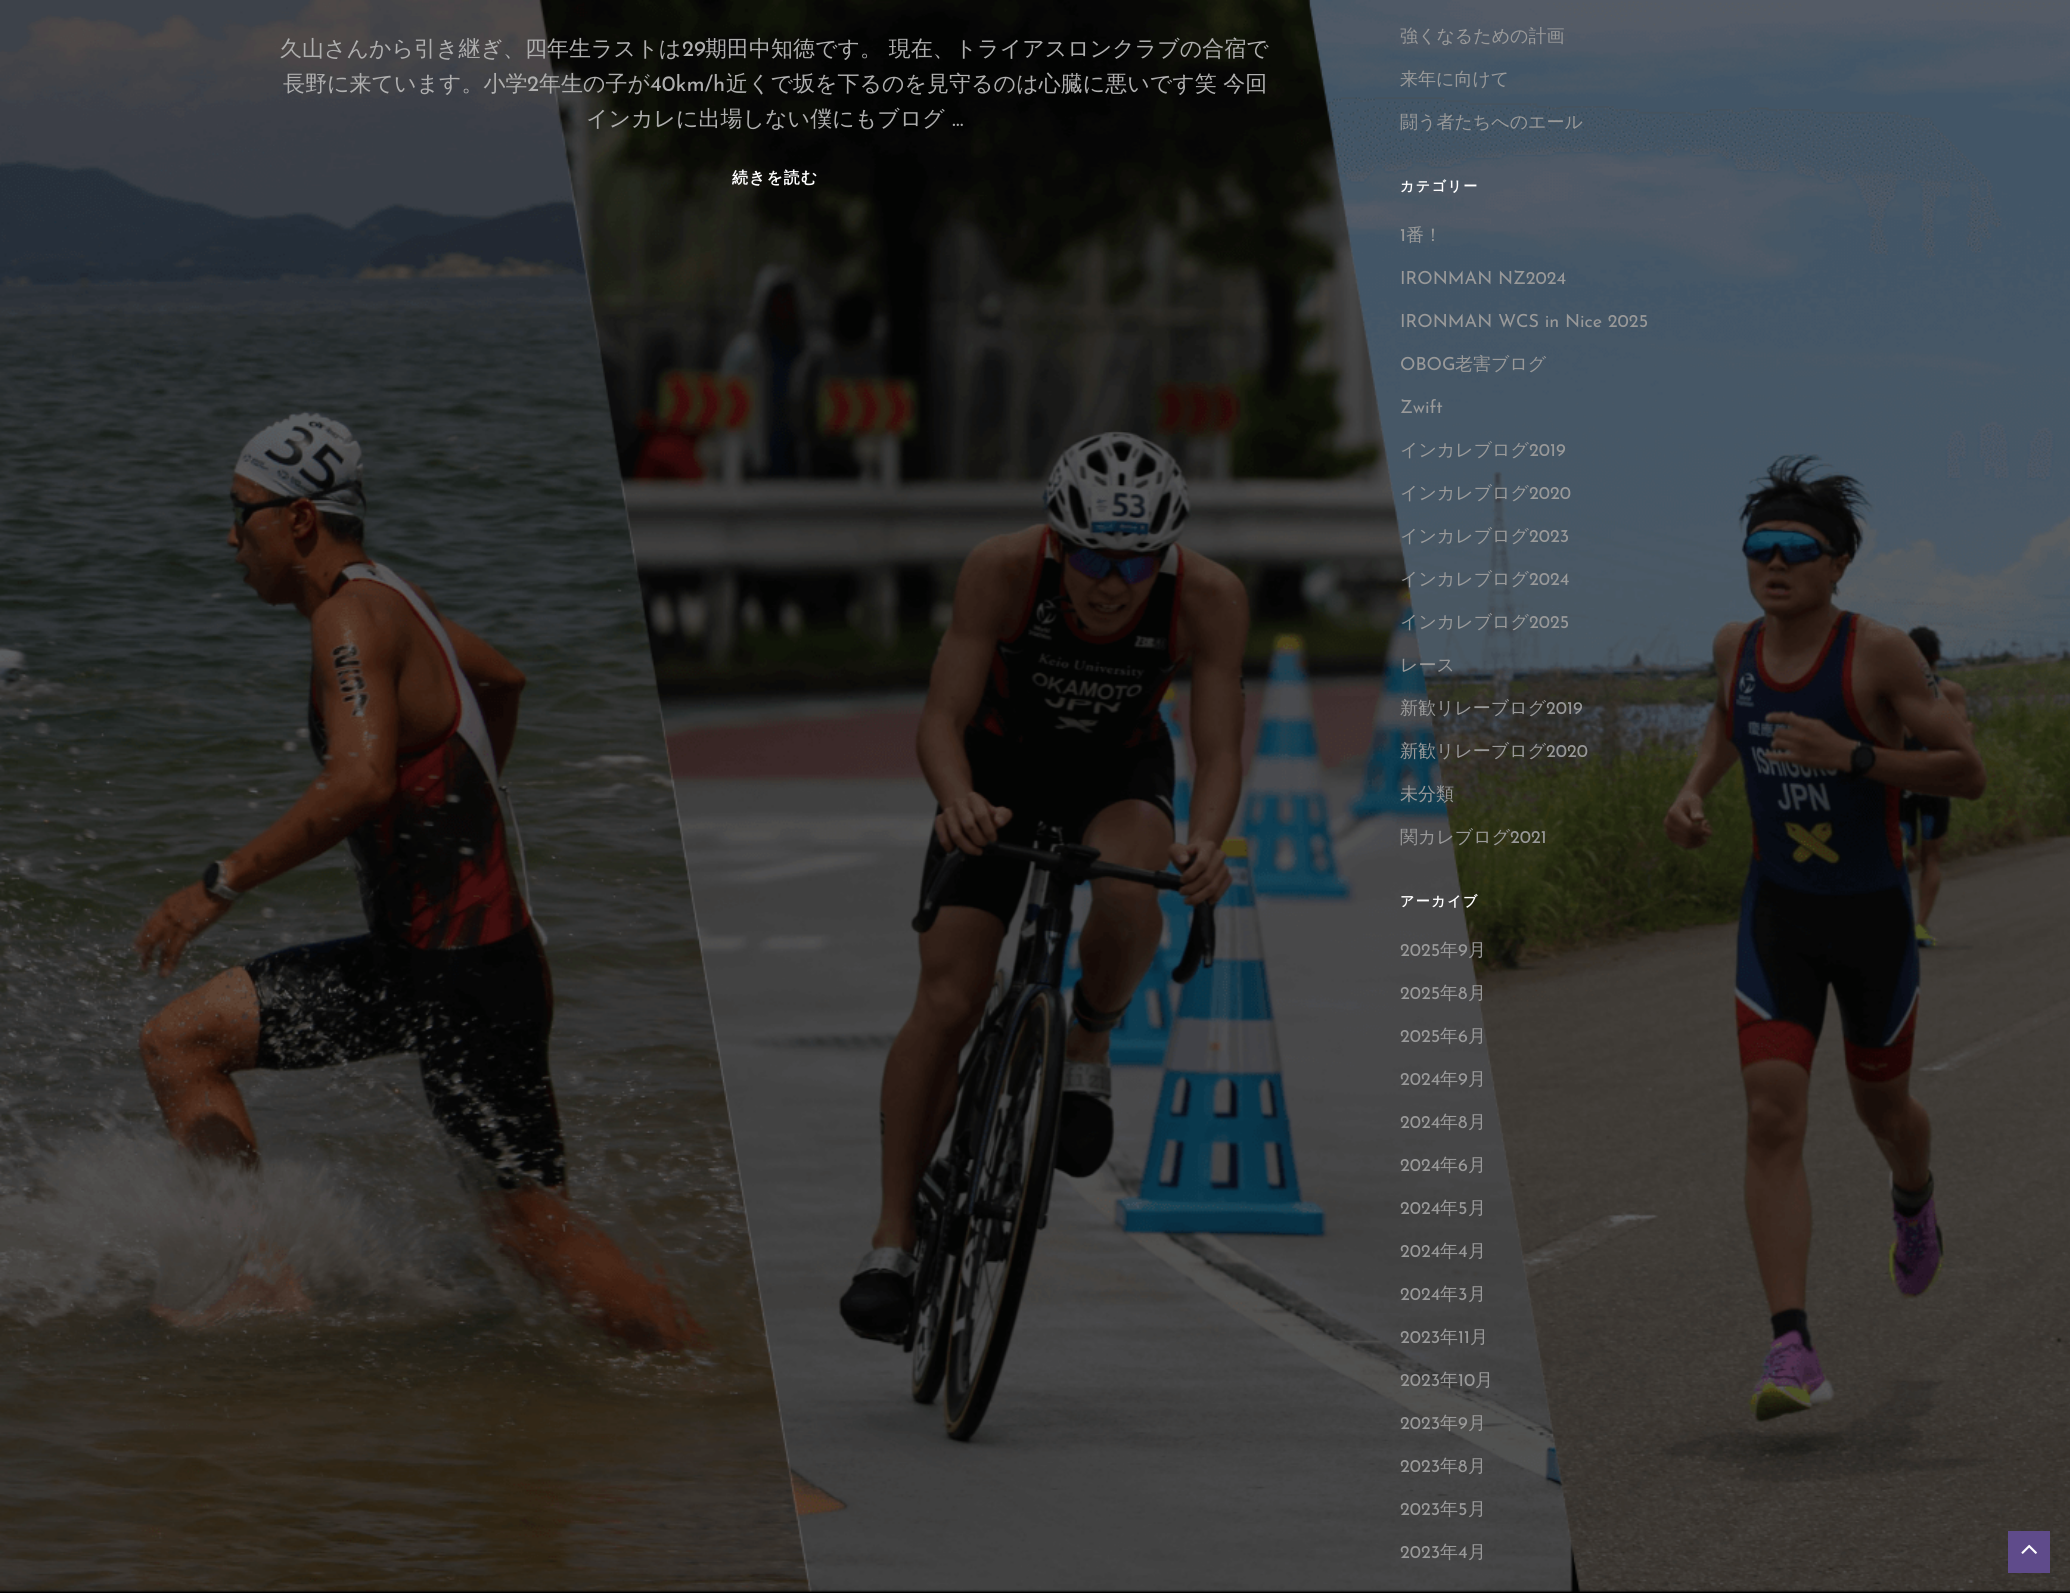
#include <cairo/cairo.h>
#include <math.h>
#include <stddef.h>

typedef struct { double x, y; const char *s; } line_t;
static cairo_t *cr;

static void rgb(unsigned color)
{
	cairo_set_source_rgb(cr, (color >> 16) / 255.0, (color >> 8 & 255) / 255.0, (color & 255) / 255.0);
}

static void tracked(double x, double y, const char *s, double letter, double word)
{
	cairo_move_to(cr, x, y);
	while (*s) {
		char ch[5] = {0};
		int n = 0;
		do ch[n++] = *s++; while ((*s & 0xC0) == 0x80);
		cairo_show_text(cr, ch);
		cairo_rel_move_to(cr, letter + word * (*ch == ' '), 0);
	}
}

static void image(const char *path, double x, double y, double w, double h)
{
	cairo_surface_t *image = cairo_image_surface_create_from_png(path);
	cairo_save(cr);
	cairo_set_source_surface(cr, image, x, y);
	cairo_rectangle(cr, x, y, w, h);
	cairo_fill(cr);
	cairo_restore(cr);
	cairo_surface_destroy(image);
}

int main(void) {
	cairo_surface_t *surface = cairo_image_surface_create(CAIRO_FORMAT_RGB24, 2070, 1593);
	cr = cairo_create(surface);
	cairo_font_options_t *options = cairo_font_options_create();
	cairo_font_options_set_hint_metrics(options, CAIRO_HINT_METRICS_OFF);
	cairo_font_options_set_hint_style(options, CAIRO_HINT_STYLE_NONE);
	cairo_set_font_options(cr, options);
	cairo_set_miter_limit(cr, 4);
	rgb(0x000000);
	cairo_paint(cr);
	image("img/1.png", 0, 0, 2070, 1592);
	rgb(0x5f4b8b);
	cairo_rectangle(cr, 2008, 1531, 42, 42);
	cairo_fill(cr);
	image("img/2.png", 2021, 1544, 16, 10);
	cairo_select_font_face(cr, "WenQuanYi Zen Hei Medium", CAIRO_FONT_SLANT_NORMAL, CAIRO_FONT_WEIGHT_NORMAL);
	cairo_set_font_size(cr, 22);
	rgb(0xafafaf);
	cairo_move_to(cr, 280, 56);
	cairo_show_text(cr, "久山さんから引き継ぎ、四年生ラストは");
	cairo_select_font_face(cr, "Josefin Sans", CAIRO_FONT_SLANT_NORMAL, CAIRO_FONT_WEIGHT_NORMAL);
	cairo_move_to(cr, 682, 56);
	cairo_show_text(cr, "29");
	cairo_select_font_face(cr, "WenQuanYi Zen Hei Medium", CAIRO_FONT_SLANT_NORMAL, CAIRO_FONT_WEIGHT_NORMAL);
	cairo_move_to(cr, 705, 56);
	cairo_show_text(cr, "期田中知徳です。 現在、トライアスロンクラブの合宿で");
	cairo_move_to(cr, 283, 91);
	cairo_show_text(cr, "長野に来ています。小学");
	cairo_select_font_face(cr, "Josefin Sans", CAIRO_FONT_SLANT_NORMAL, CAIRO_FONT_WEIGHT_NORMAL);
	cairo_move_to(cr, 527, 91);
	cairo_show_text(cr, "2");
	cairo_select_font_face(cr, "WenQuanYi Zen Hei Medium", CAIRO_FONT_SLANT_NORMAL, CAIRO_FONT_WEIGHT_NORMAL);
	cairo_move_to(cr, 539, 91);
	cairo_show_text(cr, "年生の子が");
	cairo_select_font_face(cr, "Josefin Sans", CAIRO_FONT_SLANT_NORMAL, CAIRO_FONT_WEIGHT_NORMAL);
	cairo_move_to(cr, 650, 91);
	cairo_show_text(cr, "40km/h");
	cairo_select_font_face(cr, "WenQuanYi Zen Hei Medium", CAIRO_FONT_SLANT_NORMAL, CAIRO_FONT_WEIGHT_NORMAL);
	cairo_move_to(cr, 726, 91);
	cairo_show_text(cr, "近くで坂を下るのを見守るのは心臓に悪いです笑 今回");
	cairo_move_to(cr, 586, 126);
	cairo_show_text(cr, "インカレに出場しない僕にもブログ");
	cairo_select_font_face(cr, "Josefin Sans", CAIRO_FONT_SLANT_NORMAL, CAIRO_FONT_WEIGHT_NORMAL);
	cairo_move_to(cr, 952, 126);
	cairo_show_text(cr, "…");
	cairo_select_font_face(cr, "WenQuanYi Zen Hei", CAIRO_FONT_SLANT_NORMAL, CAIRO_FONT_WEIGHT_BOLD);
	cairo_set_font_size(cr, 16);
	rgb(0xffffff);
	tracked(732, 183, "続きを読む", 1, 0);
	cairo_select_font_face(cr, "WenQuanYi Zen Hei Medium", CAIRO_FONT_SLANT_NORMAL, CAIRO_FONT_WEIGHT_NORMAL);
	cairo_set_font_size(cr, 18);
	rgb(0x999999);
	{
		static const line_t items[] = {
			{1400, 42, "強くなるための計画"},
			{1400, 85, "来年に向けて"},
			{1400, 128, "闘う者たちへのエール"},
		};
		for (size_t i = 0; i < sizeof items / sizeof *items; i++) {
			cairo_move_to(cr, items[i].x, items[i].y);
			cairo_show_text(cr, items[i].s);
		}
	}
	cairo_select_font_face(cr, "WenQuanYi Zen Hei", CAIRO_FONT_SLANT_NORMAL, CAIRO_FONT_WEIGHT_BOLD);
	cairo_set_font_size(cr, 14);
	rgb(0xffffff);
	tracked(1400, 191, "カテゴリー", 1.5, 0);
	cairo_select_font_face(cr, "Josefin Sans", CAIRO_FONT_SLANT_NORMAL, CAIRO_FONT_WEIGHT_NORMAL);
	cairo_set_font_size(cr, 18);
	rgb(0x999999);
	cairo_move_to(cr, 1400, 241);
	cairo_show_text(cr, "1");
	cairo_select_font_face(cr, "WenQuanYi Zen Hei Medium", CAIRO_FONT_SLANT_NORMAL, CAIRO_FONT_WEIGHT_NORMAL);
	cairo_move_to(cr, 1406, 241);
	cairo_show_text(cr, "番！");
	cairo_select_font_face(cr, "Josefin Sans", CAIRO_FONT_SLANT_NORMAL, CAIRO_FONT_WEIGHT_NORMAL);
	{
		static const line_t items[] = {
			{1400, 284, "IRONMAN NZ2024"},
			{1400, 327, "IRONMAN WCS in Nice 2025"},
			{1400, 370, "OBOG"},
		};
		for (size_t i = 0; i < sizeof items / sizeof *items; i++) {
			cairo_move_to(cr, items[i].x, items[i].y);
			cairo_show_text(cr, items[i].s);
		}
	}
	cairo_select_font_face(cr, "WenQuanYi Zen Hei Medium", CAIRO_FONT_SLANT_NORMAL, CAIRO_FONT_WEIGHT_NORMAL);
	cairo_move_to(cr, 1455, 370);
	cairo_show_text(cr, "老害ブログ");
	cairo_select_font_face(cr, "Josefin Sans", CAIRO_FONT_SLANT_NORMAL, CAIRO_FONT_WEIGHT_NORMAL);
	cairo_move_to(cr, 1400, 413);
	cairo_show_text(cr, "Zwift");
	cairo_select_font_face(cr, "WenQuanYi Zen Hei Medium", CAIRO_FONT_SLANT_NORMAL, CAIRO_FONT_WEIGHT_NORMAL);
	cairo_move_to(cr, 1400, 456);
	cairo_show_text(cr, "インカレブログ");
	cairo_select_font_face(cr, "Josefin Sans", CAIRO_FONT_SLANT_NORMAL, CAIRO_FONT_WEIGHT_NORMAL);
	cairo_move_to(cr, 1529, 456);
	cairo_show_text(cr, "2019");
	cairo_select_font_face(cr, "WenQuanYi Zen Hei Medium", CAIRO_FONT_SLANT_NORMAL, CAIRO_FONT_WEIGHT_NORMAL);
	cairo_move_to(cr, 1400, 499);
	cairo_show_text(cr, "インカレブログ");
	cairo_select_font_face(cr, "Josefin Sans", CAIRO_FONT_SLANT_NORMAL, CAIRO_FONT_WEIGHT_NORMAL);
	cairo_move_to(cr, 1529, 499);
	cairo_show_text(cr, "2020");
	cairo_select_font_face(cr, "WenQuanYi Zen Hei Medium", CAIRO_FONT_SLANT_NORMAL, CAIRO_FONT_WEIGHT_NORMAL);
	cairo_move_to(cr, 1400, 542);
	cairo_show_text(cr, "インカレブログ");
	cairo_select_font_face(cr, "Josefin Sans", CAIRO_FONT_SLANT_NORMAL, CAIRO_FONT_WEIGHT_NORMAL);
	cairo_move_to(cr, 1529, 542);
	cairo_show_text(cr, "2023");
	cairo_select_font_face(cr, "WenQuanYi Zen Hei Medium", CAIRO_FONT_SLANT_NORMAL, CAIRO_FONT_WEIGHT_NORMAL);
	cairo_move_to(cr, 1400, 585);
	cairo_show_text(cr, "インカレブログ");
	cairo_select_font_face(cr, "Josefin Sans", CAIRO_FONT_SLANT_NORMAL, CAIRO_FONT_WEIGHT_NORMAL);
	cairo_move_to(cr, 1529, 585);
	cairo_show_text(cr, "2024");
	cairo_select_font_face(cr, "WenQuanYi Zen Hei Medium", CAIRO_FONT_SLANT_NORMAL, CAIRO_FONT_WEIGHT_NORMAL);
	cairo_move_to(cr, 1400, 628);
	cairo_show_text(cr, "インカレブログ");
	cairo_select_font_face(cr, "Josefin Sans", CAIRO_FONT_SLANT_NORMAL, CAIRO_FONT_WEIGHT_NORMAL);
	cairo_move_to(cr, 1529, 628);
	cairo_show_text(cr, "2025");
	cairo_select_font_face(cr, "WenQuanYi Zen Hei Medium", CAIRO_FONT_SLANT_NORMAL, CAIRO_FONT_WEIGHT_NORMAL);
	cairo_move_to(cr, 1400, 671);
	cairo_show_text(cr, "レース");
	cairo_move_to(cr, 1400, 714);
	cairo_show_text(cr, "新歓リレーブログ");
	cairo_select_font_face(cr, "Josefin Sans", CAIRO_FONT_SLANT_NORMAL, CAIRO_FONT_WEIGHT_NORMAL);
	cairo_move_to(cr, 1546, 714);
	cairo_show_text(cr, "2019");
	cairo_select_font_face(cr, "WenQuanYi Zen Hei Medium", CAIRO_FONT_SLANT_NORMAL, CAIRO_FONT_WEIGHT_NORMAL);
	cairo_move_to(cr, 1400, 757);
	cairo_show_text(cr, "新歓リレーブログ");
	cairo_select_font_face(cr, "Josefin Sans", CAIRO_FONT_SLANT_NORMAL, CAIRO_FONT_WEIGHT_NORMAL);
	cairo_move_to(cr, 1546, 757);
	cairo_show_text(cr, "2020");
	cairo_select_font_face(cr, "WenQuanYi Zen Hei Medium", CAIRO_FONT_SLANT_NORMAL, CAIRO_FONT_WEIGHT_NORMAL);
	cairo_move_to(cr, 1400, 800);
	cairo_show_text(cr, "未分類");
	cairo_move_to(cr, 1400, 843);
	cairo_show_text(cr, "関カレブログ");
	cairo_select_font_face(cr, "Josefin Sans", CAIRO_FONT_SLANT_NORMAL, CAIRO_FONT_WEIGHT_NORMAL);
	cairo_move_to(cr, 1510, 843);
	cairo_show_text(cr, "2021");
	cairo_select_font_face(cr, "WenQuanYi Zen Hei", CAIRO_FONT_SLANT_NORMAL, CAIRO_FONT_WEIGHT_BOLD);
	cairo_set_font_size(cr, 14);
	rgb(0xffffff);
	tracked(1400, 906, "アーカイブ", 1.5, 0);
	cairo_select_font_face(cr, "Josefin Sans", CAIRO_FONT_SLANT_NORMAL, CAIRO_FONT_WEIGHT_NORMAL);
	cairo_set_font_size(cr, 18);
	rgb(0x999999);
	cairo_move_to(cr, 1400, 956);
	cairo_show_text(cr, "2025");
	cairo_select_font_face(cr, "WenQuanYi Zen Hei Medium", CAIRO_FONT_SLANT_NORMAL, CAIRO_FONT_WEIGHT_NORMAL);
	cairo_move_to(cr, 1440, 956);
	cairo_show_text(cr, "年");
	cairo_select_font_face(cr, "Josefin Sans", CAIRO_FONT_SLANT_NORMAL, CAIRO_FONT_WEIGHT_NORMAL);
	cairo_move_to(cr, 1458, 956);
	cairo_show_text(cr, "9");
	cairo_select_font_face(cr, "WenQuanYi Zen Hei Medium", CAIRO_FONT_SLANT_NORMAL, CAIRO_FONT_WEIGHT_NORMAL);
	cairo_move_to(cr, 1468, 956);
	cairo_show_text(cr, "月");
	cairo_select_font_face(cr, "Josefin Sans", CAIRO_FONT_SLANT_NORMAL, CAIRO_FONT_WEIGHT_NORMAL);
	cairo_move_to(cr, 1400, 999);
	cairo_show_text(cr, "2025");
	cairo_select_font_face(cr, "WenQuanYi Zen Hei Medium", CAIRO_FONT_SLANT_NORMAL, CAIRO_FONT_WEIGHT_NORMAL);
	cairo_move_to(cr, 1440, 999);
	cairo_show_text(cr, "年");
	cairo_select_font_face(cr, "Josefin Sans", CAIRO_FONT_SLANT_NORMAL, CAIRO_FONT_WEIGHT_NORMAL);
	cairo_move_to(cr, 1458, 999);
	cairo_show_text(cr, "8");
	cairo_select_font_face(cr, "WenQuanYi Zen Hei Medium", CAIRO_FONT_SLANT_NORMAL, CAIRO_FONT_WEIGHT_NORMAL);
	cairo_move_to(cr, 1468, 999);
	cairo_show_text(cr, "月");
	cairo_select_font_face(cr, "Josefin Sans", CAIRO_FONT_SLANT_NORMAL, CAIRO_FONT_WEIGHT_NORMAL);
	cairo_move_to(cr, 1400, 1042);
	cairo_show_text(cr, "2025");
	cairo_select_font_face(cr, "WenQuanYi Zen Hei Medium", CAIRO_FONT_SLANT_NORMAL, CAIRO_FONT_WEIGHT_NORMAL);
	cairo_move_to(cr, 1440, 1042);
	cairo_show_text(cr, "年");
	cairo_select_font_face(cr, "Josefin Sans", CAIRO_FONT_SLANT_NORMAL, CAIRO_FONT_WEIGHT_NORMAL);
	cairo_move_to(cr, 1458, 1042);
	cairo_show_text(cr, "6");
	cairo_select_font_face(cr, "WenQuanYi Zen Hei Medium", CAIRO_FONT_SLANT_NORMAL, CAIRO_FONT_WEIGHT_NORMAL);
	cairo_move_to(cr, 1468, 1042);
	cairo_show_text(cr, "月");
	cairo_select_font_face(cr, "Josefin Sans", CAIRO_FONT_SLANT_NORMAL, CAIRO_FONT_WEIGHT_NORMAL);
	cairo_move_to(cr, 1400, 1085);
	cairo_show_text(cr, "2024");
	cairo_select_font_face(cr, "WenQuanYi Zen Hei Medium", CAIRO_FONT_SLANT_NORMAL, CAIRO_FONT_WEIGHT_NORMAL);
	cairo_move_to(cr, 1440, 1085);
	cairo_show_text(cr, "年");
	cairo_select_font_face(cr, "Josefin Sans", CAIRO_FONT_SLANT_NORMAL, CAIRO_FONT_WEIGHT_NORMAL);
	cairo_move_to(cr, 1458, 1085);
	cairo_show_text(cr, "9");
	cairo_select_font_face(cr, "WenQuanYi Zen Hei Medium", CAIRO_FONT_SLANT_NORMAL, CAIRO_FONT_WEIGHT_NORMAL);
	cairo_move_to(cr, 1468, 1085);
	cairo_show_text(cr, "月");
	cairo_select_font_face(cr, "Josefin Sans", CAIRO_FONT_SLANT_NORMAL, CAIRO_FONT_WEIGHT_NORMAL);
	cairo_move_to(cr, 1400, 1128);
	cairo_show_text(cr, "2024");
	cairo_select_font_face(cr, "WenQuanYi Zen Hei Medium", CAIRO_FONT_SLANT_NORMAL, CAIRO_FONT_WEIGHT_NORMAL);
	cairo_move_to(cr, 1440, 1128);
	cairo_show_text(cr, "年");
	cairo_select_font_face(cr, "Josefin Sans", CAIRO_FONT_SLANT_NORMAL, CAIRO_FONT_WEIGHT_NORMAL);
	cairo_move_to(cr, 1458, 1128);
	cairo_show_text(cr, "8");
	cairo_select_font_face(cr, "WenQuanYi Zen Hei Medium", CAIRO_FONT_SLANT_NORMAL, CAIRO_FONT_WEIGHT_NORMAL);
	cairo_move_to(cr, 1468, 1128);
	cairo_show_text(cr, "月");
	cairo_select_font_face(cr, "Josefin Sans", CAIRO_FONT_SLANT_NORMAL, CAIRO_FONT_WEIGHT_NORMAL);
	cairo_move_to(cr, 1400, 1171);
	cairo_show_text(cr, "2024");
	cairo_select_font_face(cr, "WenQuanYi Zen Hei Medium", CAIRO_FONT_SLANT_NORMAL, CAIRO_FONT_WEIGHT_NORMAL);
	cairo_move_to(cr, 1440, 1171);
	cairo_show_text(cr, "年");
	cairo_select_font_face(cr, "Josefin Sans", CAIRO_FONT_SLANT_NORMAL, CAIRO_FONT_WEIGHT_NORMAL);
	cairo_move_to(cr, 1458, 1171);
	cairo_show_text(cr, "6");
	cairo_select_font_face(cr, "WenQuanYi Zen Hei Medium", CAIRO_FONT_SLANT_NORMAL, CAIRO_FONT_WEIGHT_NORMAL);
	cairo_move_to(cr, 1468, 1171);
	cairo_show_text(cr, "月");
	cairo_select_font_face(cr, "Josefin Sans", CAIRO_FONT_SLANT_NORMAL, CAIRO_FONT_WEIGHT_NORMAL);
	cairo_move_to(cr, 1400, 1214);
	cairo_show_text(cr, "2024");
	cairo_select_font_face(cr, "WenQuanYi Zen Hei Medium", CAIRO_FONT_SLANT_NORMAL, CAIRO_FONT_WEIGHT_NORMAL);
	cairo_move_to(cr, 1440, 1214);
	cairo_show_text(cr, "年");
	cairo_select_font_face(cr, "Josefin Sans", CAIRO_FONT_SLANT_NORMAL, CAIRO_FONT_WEIGHT_NORMAL);
	cairo_move_to(cr, 1458, 1214);
	cairo_show_text(cr, "5");
	cairo_select_font_face(cr, "WenQuanYi Zen Hei Medium", CAIRO_FONT_SLANT_NORMAL, CAIRO_FONT_WEIGHT_NORMAL);
	cairo_move_to(cr, 1468, 1214);
	cairo_show_text(cr, "月");
	cairo_select_font_face(cr, "Josefin Sans", CAIRO_FONT_SLANT_NORMAL, CAIRO_FONT_WEIGHT_NORMAL);
	cairo_move_to(cr, 1400, 1257);
	cairo_show_text(cr, "2024");
	cairo_select_font_face(cr, "WenQuanYi Zen Hei Medium", CAIRO_FONT_SLANT_NORMAL, CAIRO_FONT_WEIGHT_NORMAL);
	cairo_move_to(cr, 1440, 1257);
	cairo_show_text(cr, "年");
	cairo_select_font_face(cr, "Josefin Sans", CAIRO_FONT_SLANT_NORMAL, CAIRO_FONT_WEIGHT_NORMAL);
	cairo_move_to(cr, 1458, 1257);
	cairo_show_text(cr, "4");
	cairo_select_font_face(cr, "WenQuanYi Zen Hei Medium", CAIRO_FONT_SLANT_NORMAL, CAIRO_FONT_WEIGHT_NORMAL);
	cairo_move_to(cr, 1468, 1257);
	cairo_show_text(cr, "月");
	cairo_select_font_face(cr, "Josefin Sans", CAIRO_FONT_SLANT_NORMAL, CAIRO_FONT_WEIGHT_NORMAL);
	cairo_move_to(cr, 1400, 1300);
	cairo_show_text(cr, "2024");
	cairo_select_font_face(cr, "WenQuanYi Zen Hei Medium", CAIRO_FONT_SLANT_NORMAL, CAIRO_FONT_WEIGHT_NORMAL);
	cairo_move_to(cr, 1440, 1300);
	cairo_show_text(cr, "年");
	cairo_select_font_face(cr, "Josefin Sans", CAIRO_FONT_SLANT_NORMAL, CAIRO_FONT_WEIGHT_NORMAL);
	cairo_move_to(cr, 1458, 1300);
	cairo_show_text(cr, "3");
	cairo_select_font_face(cr, "WenQuanYi Zen Hei Medium", CAIRO_FONT_SLANT_NORMAL, CAIRO_FONT_WEIGHT_NORMAL);
	cairo_move_to(cr, 1468, 1300);
	cairo_show_text(cr, "月");
	cairo_select_font_face(cr, "Josefin Sans", CAIRO_FONT_SLANT_NORMAL, CAIRO_FONT_WEIGHT_NORMAL);
	cairo_move_to(cr, 1400, 1343);
	cairo_show_text(cr, "2023");
	cairo_select_font_face(cr, "WenQuanYi Zen Hei Medium", CAIRO_FONT_SLANT_NORMAL, CAIRO_FONT_WEIGHT_NORMAL);
	cairo_move_to(cr, 1440, 1343);
	cairo_show_text(cr, "年");
	cairo_select_font_face(cr, "Josefin Sans", CAIRO_FONT_SLANT_NORMAL, CAIRO_FONT_WEIGHT_NORMAL);
	cairo_move_to(cr, 1458, 1343);
	cairo_show_text(cr, "11");
	cairo_select_font_face(cr, "WenQuanYi Zen Hei Medium", CAIRO_FONT_SLANT_NORMAL, CAIRO_FONT_WEIGHT_NORMAL);
	cairo_move_to(cr, 1470, 1343);
	cairo_show_text(cr, "月");
	cairo_select_font_face(cr, "Josefin Sans", CAIRO_FONT_SLANT_NORMAL, CAIRO_FONT_WEIGHT_NORMAL);
	cairo_move_to(cr, 1400, 1386);
	cairo_show_text(cr, "2023");
	cairo_select_font_face(cr, "WenQuanYi Zen Hei Medium", CAIRO_FONT_SLANT_NORMAL, CAIRO_FONT_WEIGHT_NORMAL);
	cairo_move_to(cr, 1440, 1386);
	cairo_show_text(cr, "年");
	cairo_select_font_face(cr, "Josefin Sans", CAIRO_FONT_SLANT_NORMAL, CAIRO_FONT_WEIGHT_NORMAL);
	cairo_move_to(cr, 1458, 1386);
	cairo_show_text(cr, "10");
	cairo_select_font_face(cr, "WenQuanYi Zen Hei Medium", CAIRO_FONT_SLANT_NORMAL, CAIRO_FONT_WEIGHT_NORMAL);
	cairo_move_to(cr, 1475, 1386);
	cairo_show_text(cr, "月");
	cairo_select_font_face(cr, "Josefin Sans", CAIRO_FONT_SLANT_NORMAL, CAIRO_FONT_WEIGHT_NORMAL);
	cairo_move_to(cr, 1400, 1429);
	cairo_show_text(cr, "2023");
	cairo_select_font_face(cr, "WenQuanYi Zen Hei Medium", CAIRO_FONT_SLANT_NORMAL, CAIRO_FONT_WEIGHT_NORMAL);
	cairo_move_to(cr, 1440, 1429);
	cairo_show_text(cr, "年");
	cairo_select_font_face(cr, "Josefin Sans", CAIRO_FONT_SLANT_NORMAL, CAIRO_FONT_WEIGHT_NORMAL);
	cairo_move_to(cr, 1458, 1429);
	cairo_show_text(cr, "9");
	cairo_select_font_face(cr, "WenQuanYi Zen Hei Medium", CAIRO_FONT_SLANT_NORMAL, CAIRO_FONT_WEIGHT_NORMAL);
	cairo_move_to(cr, 1468, 1429);
	cairo_show_text(cr, "月");
	cairo_select_font_face(cr, "Josefin Sans", CAIRO_FONT_SLANT_NORMAL, CAIRO_FONT_WEIGHT_NORMAL);
	cairo_move_to(cr, 1400, 1472);
	cairo_show_text(cr, "2023");
	cairo_select_font_face(cr, "WenQuanYi Zen Hei Medium", CAIRO_FONT_SLANT_NORMAL, CAIRO_FONT_WEIGHT_NORMAL);
	cairo_move_to(cr, 1440, 1472);
	cairo_show_text(cr, "年");
	cairo_select_font_face(cr, "Josefin Sans", CAIRO_FONT_SLANT_NORMAL, CAIRO_FONT_WEIGHT_NORMAL);
	cairo_move_to(cr, 1458, 1472);
	cairo_show_text(cr, "8");
	cairo_select_font_face(cr, "WenQuanYi Zen Hei Medium", CAIRO_FONT_SLANT_NORMAL, CAIRO_FONT_WEIGHT_NORMAL);
	cairo_move_to(cr, 1468, 1472);
	cairo_show_text(cr, "月");
	cairo_select_font_face(cr, "Josefin Sans", CAIRO_FONT_SLANT_NORMAL, CAIRO_FONT_WEIGHT_NORMAL);
	cairo_move_to(cr, 1400, 1515);
	cairo_show_text(cr, "2023");
	cairo_select_font_face(cr, "WenQuanYi Zen Hei Medium", CAIRO_FONT_SLANT_NORMAL, CAIRO_FONT_WEIGHT_NORMAL);
	cairo_move_to(cr, 1440, 1515);
	cairo_show_text(cr, "年");
	cairo_select_font_face(cr, "Josefin Sans", CAIRO_FONT_SLANT_NORMAL, CAIRO_FONT_WEIGHT_NORMAL);
	cairo_move_to(cr, 1458, 1515);
	cairo_show_text(cr, "5");
	cairo_select_font_face(cr, "WenQuanYi Zen Hei Medium", CAIRO_FONT_SLANT_NORMAL, CAIRO_FONT_WEIGHT_NORMAL);
	cairo_move_to(cr, 1468, 1515);
	cairo_show_text(cr, "月");
	cairo_select_font_face(cr, "Josefin Sans", CAIRO_FONT_SLANT_NORMAL, CAIRO_FONT_WEIGHT_NORMAL);
	cairo_move_to(cr, 1400, 1558);
	cairo_show_text(cr, "2023");
	cairo_select_font_face(cr, "WenQuanYi Zen Hei Medium", CAIRO_FONT_SLANT_NORMAL, CAIRO_FONT_WEIGHT_NORMAL);
	cairo_move_to(cr, 1440, 1558);
	cairo_show_text(cr, "年");
	cairo_select_font_face(cr, "Josefin Sans", CAIRO_FONT_SLANT_NORMAL, CAIRO_FONT_WEIGHT_NORMAL);
	cairo_move_to(cr, 1458, 1558);
	cairo_show_text(cr, "4");
	cairo_select_font_face(cr, "WenQuanYi Zen Hei Medium", CAIRO_FONT_SLANT_NORMAL, CAIRO_FONT_WEIGHT_NORMAL);
	cairo_move_to(cr, 1468, 1558);
	cairo_show_text(cr, "月");
	cairo_surface_write_to_png(surface, "page.png");
	cairo_font_options_destroy(options);
	cairo_destroy(cr);
	cairo_surface_destroy(surface);
	return 0;
}
